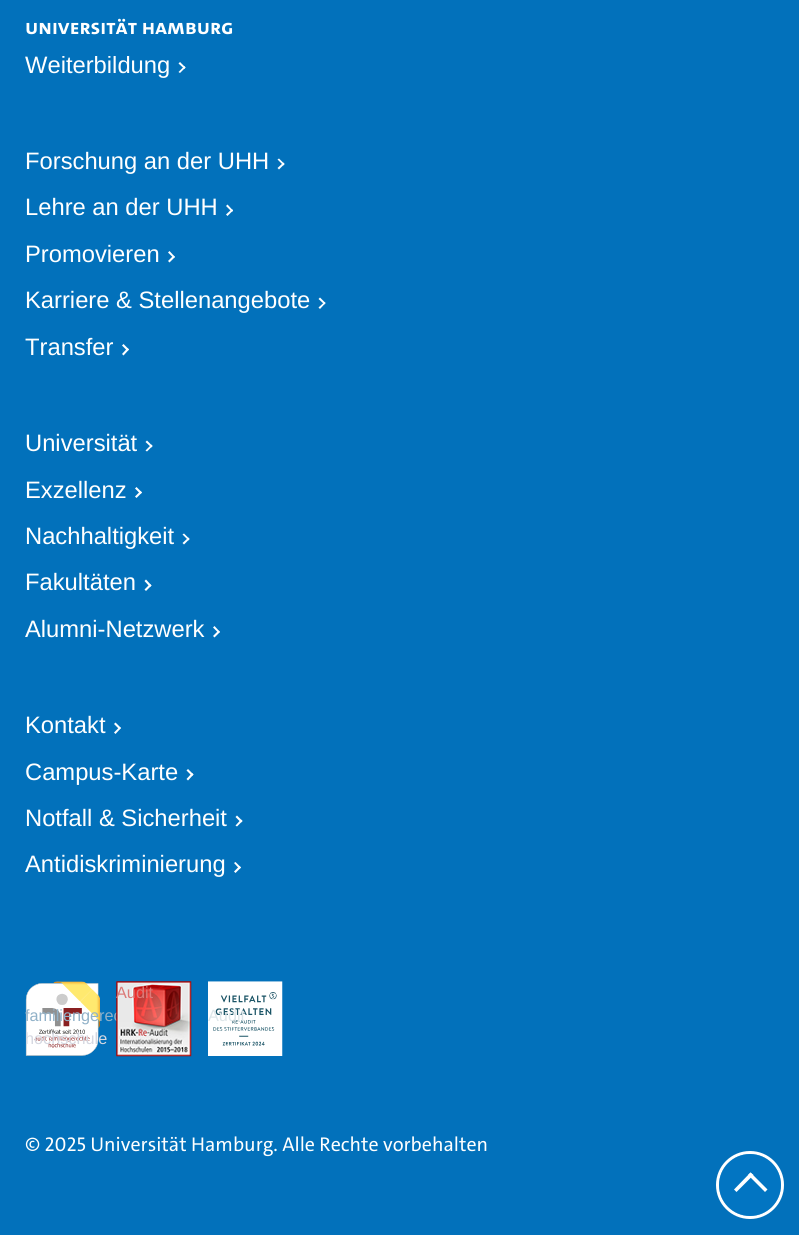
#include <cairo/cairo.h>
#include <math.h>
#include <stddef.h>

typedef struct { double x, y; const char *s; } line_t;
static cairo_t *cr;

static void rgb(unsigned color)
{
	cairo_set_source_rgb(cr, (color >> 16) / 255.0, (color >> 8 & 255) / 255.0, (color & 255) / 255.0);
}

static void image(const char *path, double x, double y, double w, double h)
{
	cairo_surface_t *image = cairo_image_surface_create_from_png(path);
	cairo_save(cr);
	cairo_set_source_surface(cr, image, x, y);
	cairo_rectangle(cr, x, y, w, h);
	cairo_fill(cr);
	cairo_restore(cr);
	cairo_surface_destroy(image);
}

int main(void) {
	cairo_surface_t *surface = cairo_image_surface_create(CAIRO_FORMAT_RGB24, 799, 1235);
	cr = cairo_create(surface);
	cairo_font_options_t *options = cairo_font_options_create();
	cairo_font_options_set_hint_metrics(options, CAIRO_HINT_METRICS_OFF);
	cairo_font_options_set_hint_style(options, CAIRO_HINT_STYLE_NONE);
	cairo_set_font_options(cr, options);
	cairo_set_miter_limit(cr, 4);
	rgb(0x0271bb);
	cairo_paint(cr);
	rgb(0xffffff);
	cairo_new_path(cr);
	cairo_move_to(cr, 180, 62);
	cairo_line_to(cr, 185.5, 67.5);
	cairo_line_to(cr, 184.5, 69);
	cairo_line_to(cr, 178.5, 63.5);
	cairo_close_path(cr);
	cairo_fill(cr);
	cairo_new_path(cr);
	cairo_move_to(cr, 184.5, 66);
	cairo_line_to(cr, 185.5, 67.5);
	cairo_line_to(cr, 180, 73);
	cairo_line_to(cr, 178.5, 72);
	cairo_close_path(cr);
	cairo_fill(cr);
	cairo_new_path(cr);
	cairo_move_to(cr, 279, 158.5);
	cairo_line_to(cr, 284.5, 164);
	cairo_line_to(cr, 283.5, 165.5);
	cairo_line_to(cr, 277.5, 159.5);
	cairo_close_path(cr);
	cairo_fill(cr);
	cairo_new_path(cr);
	cairo_move_to(cr, 283.5, 162.5);
	cairo_line_to(cr, 284.5, 164);
	cairo_line_to(cr, 279, 169.5);
	cairo_line_to(cr, 277.5, 168);
	cairo_close_path(cr);
	cairo_fill(cr);
	cairo_new_path(cr);
	cairo_move_to(cr, 227.5, 204.5);
	cairo_line_to(cr, 233, 210.5);
	cairo_line_to(cr, 232, 212);
	cairo_line_to(cr, 226, 206);
	cairo_close_path(cr);
	cairo_fill(cr);
	cairo_new_path(cr);
	cairo_move_to(cr, 232, 209);
	cairo_line_to(cr, 233, 210.5);
	cairo_line_to(cr, 227.5, 216);
	cairo_line_to(cr, 226, 214.5);
	cairo_close_path(cr);
	cairo_fill(cr);
	cairo_new_path(cr);
	cairo_move_to(cr, 169.5, 251);
	cairo_line_to(cr, 175, 257);
	cairo_line_to(cr, 173.5, 258);
	cairo_line_to(cr, 168, 252.5);
	cairo_close_path(cr);
	cairo_fill(cr);
	cairo_new_path(cr);
	cairo_move_to(cr, 173.5, 255.5);
	cairo_line_to(cr, 175, 257);
	cairo_line_to(cr, 169.5, 262.5);
	cairo_line_to(cr, 168, 261);
	cairo_close_path(cr);
	cairo_fill(cr);
	cairo_new_path(cr);
	cairo_move_to(cr, 320, 297.5);
	cairo_line_to(cr, 325.5, 303);
	cairo_line_to(cr, 324.5, 304.5);
	cairo_line_to(cr, 318.5, 299);
	cairo_close_path(cr);
	cairo_fill(cr);
	cairo_new_path(cr);
	cairo_move_to(cr, 324.5, 302);
	cairo_line_to(cr, 325.5, 303);
	cairo_line_to(cr, 320, 309);
	cairo_line_to(cr, 318.5, 307.5);
	cairo_close_path(cr);
	cairo_fill(cr);
	cairo_new_path(cr);
	cairo_move_to(cr, 123.5, 344);
	cairo_line_to(cr, 129, 349.5);
	cairo_line_to(cr, 127.5, 351);
	cairo_line_to(cr, 122, 345.5);
	cairo_close_path(cr);
	cairo_fill(cr);
	cairo_new_path(cr);
	cairo_move_to(cr, 127.5, 348);
	cairo_line_to(cr, 129, 349.5);
	cairo_line_to(cr, 123.5, 355.5);
	cairo_line_to(cr, 122, 354);
	cairo_close_path(cr);
	cairo_fill(cr);
	cairo_new_path(cr);
	cairo_move_to(cr, 147, 440.5);
	cairo_line_to(cr, 152.5, 446);
	cairo_line_to(cr, 151.5, 447.5);
	cairo_line_to(cr, 145.5, 442);
	cairo_close_path(cr);
	cairo_fill(cr);
	cairo_new_path(cr);
	cairo_move_to(cr, 151.5, 444.5);
	cairo_line_to(cr, 152.5, 446);
	cairo_line_to(cr, 147, 451.5);
	cairo_line_to(cr, 145.5, 450.5);
	cairo_close_path(cr);
	cairo_fill(cr);
	cairo_new_path(cr);
	cairo_move_to(cr, 136.5, 487);
	cairo_line_to(cr, 142, 492.5);
	cairo_line_to(cr, 140.5, 494);
	cairo_line_to(cr, 135, 488.5);
	cairo_close_path(cr);
	cairo_fill(cr);
	cairo_new_path(cr);
	cairo_move_to(cr, 140.5, 491);
	cairo_line_to(cr, 142, 492.5);
	cairo_line_to(cr, 136.5, 498);
	cairo_line_to(cr, 135, 496.5);
	cairo_close_path(cr);
	cairo_fill(cr);
	cairo_new_path(cr);
	cairo_move_to(cr, 184, 533.5);
	cairo_line_to(cr, 189.5, 539);
	cairo_line_to(cr, 188.5, 540.5);
	cairo_line_to(cr, 182.5, 534.5);
	cairo_close_path(cr);
	cairo_fill(cr);
	cairo_new_path(cr);
	cairo_move_to(cr, 188.5, 537.5);
	cairo_line_to(cr, 189.5, 539);
	cairo_line_to(cr, 184, 544.5);
	cairo_line_to(cr, 182.5, 543);
	cairo_close_path(cr);
	cairo_fill(cr);
	cairo_new_path(cr);
	cairo_move_to(cr, 146, 579.5);
	cairo_line_to(cr, 151.5, 585.5);
	cairo_line_to(cr, 150, 587);
	cairo_line_to(cr, 144.5, 581);
	cairo_close_path(cr);
	cairo_fill(cr);
	cairo_new_path(cr);
	cairo_move_to(cr, 150, 584);
	cairo_line_to(cr, 151.5, 585.5);
	cairo_line_to(cr, 146, 591);
	cairo_line_to(cr, 144.5, 589.5);
	cairo_close_path(cr);
	cairo_fill(cr);
	cairo_new_path(cr);
	cairo_move_to(cr, 214.5, 626);
	cairo_line_to(cr, 220, 632);
	cairo_line_to(cr, 218.5, 633);
	cairo_line_to(cr, 213, 627.5);
	cairo_close_path(cr);
	cairo_fill(cr);
	cairo_new_path(cr);
	cairo_move_to(cr, 218.5, 630.5);
	cairo_line_to(cr, 220, 632);
	cairo_line_to(cr, 214.5, 637.5);
	cairo_line_to(cr, 213, 636);
	cairo_close_path(cr);
	cairo_fill(cr);
	cairo_new_path(cr);
	cairo_move_to(cr, 115.5, 722.5);
	cairo_line_to(cr, 121, 728);
	cairo_line_to(cr, 119.5, 729.5);
	cairo_line_to(cr, 114, 724);
	cairo_close_path(cr);
	cairo_fill(cr);
	cairo_new_path(cr);
	cairo_move_to(cr, 119.5, 727);
	cairo_line_to(cr, 121, 728);
	cairo_line_to(cr, 115.5, 734);
	cairo_line_to(cr, 114, 732.5);
	cairo_close_path(cr);
	cairo_fill(cr);
	cairo_new_path(cr);
	cairo_move_to(cr, 188, 769);
	cairo_line_to(cr, 193.5, 774.5);
	cairo_line_to(cr, 192, 776);
	cairo_line_to(cr, 186.5, 770.5);
	cairo_close_path(cr);
	cairo_fill(cr);
	cairo_new_path(cr);
	cairo_move_to(cr, 192, 773);
	cairo_line_to(cr, 193.5, 774.5);
	cairo_line_to(cr, 188, 780.5);
	cairo_line_to(cr, 186.5, 779);
	cairo_close_path(cr);
	cairo_fill(cr);
	cairo_new_path(cr);
	cairo_move_to(cr, 237, 815.5);
	cairo_line_to(cr, 242.5, 821);
	cairo_line_to(cr, 241, 822.5);
	cairo_line_to(cr, 235.5, 817);
	cairo_close_path(cr);
	cairo_fill(cr);
	cairo_new_path(cr);
	cairo_move_to(cr, 241, 819.5);
	cairo_line_to(cr, 242.5, 821);
	cairo_line_to(cr, 237, 826.5);
	cairo_line_to(cr, 235.5, 825.5);
	cairo_close_path(cr);
	cairo_fill(cr);
	cairo_new_path(cr);
	cairo_move_to(cr, 235.5, 862);
	cairo_line_to(cr, 241, 867.5);
	cairo_line_to(cr, 239.5, 869);
	cairo_line_to(cr, 234, 863);
	cairo_close_path(cr);
	cairo_fill(cr);
	cairo_new_path(cr);
	cairo_move_to(cr, 239.5, 866);
	cairo_line_to(cr, 241, 867.5);
	cairo_line_to(cr, 235.5, 873);
	cairo_line_to(cr, 234, 871.5);
	cairo_close_path(cr);
	cairo_fill(cr);
	image("img/2.png", 25, 981, 75, 75);
	image("img/3.png", 208, 981, 75, 75);
	cairo_arc(cr, 750, 1185, 32.5, 0, 2 * M_PI);
	cairo_set_line_width(cr, 3);
	cairo_stroke(cr);
	cairo_set_source_rgba(cr, 0.008, 0.478, 0.792, 0.5);
	cairo_arc(cr, 750, 1185, 31, 0, 2 * M_PI);
	cairo_fill(cr);
	rgb(0xffffff);
	cairo_new_path(cr);
	cairo_move_to(cr, 734, 1189.5);
	cairo_line_to(cr, 750.5, 1172.5);
	cairo_line_to(cr, 753.5, 1175);
	cairo_line_to(cr, 736.5, 1192);
	cairo_close_path(cr);
	cairo_fill(cr);
	cairo_new_path(cr);
	cairo_move_to(cr, 748, 1175);
	cairo_line_to(cr, 750.5, 1172.5);
	cairo_line_to(cr, 767.5, 1189.5);
	cairo_line_to(cr, 765, 1192);
	cairo_close_path(cr);
	cairo_fill(cr);
	cairo_select_font_face(cr, "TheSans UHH", CAIRO_FONT_SLANT_NORMAL, CAIRO_FONT_WEIGHT_BOLD);
	cairo_set_font_size(cr, 21.25);
	cairo_move_to(cr, 25, 34);
	cairo_show_text(cr, "Universität Hamburg");
	cairo_select_font_face(cr, "Liberation Sans", CAIRO_FONT_SLANT_NORMAL, CAIRO_FONT_WEIGHT_NORMAL);
	cairo_set_font_size(cr, 23.75);
	cairo_move_to(cr, 25, 73);
	cairo_show_text(cr, "Weiterbildung");
	rgb(0x0271bb);
	cairo_rectangle(cr, 62, 55, 67, 1);
	cairo_fill(cr);
	rgb(0xffffff);
	{
		static const line_t items[] = {
			{25, 169, "Forschung an der UHH"},
			{25, 215, "Lehre an der UHH"},
			{25, 262, "Promovieren"},
			{25, 308, "Karriere & Stellenangebote"},
			{25, 355, "Transfer"},
			{25, 451, "Universität"},
			{25, 498, "Exzellenz"},
			{25, 544, "Nachhaltigkeit"},
			{25, 590, "Fakultäten"},
			{25, 637, "Alumni-Netzwerk"},
			{25, 733, "Kontakt"},
			{25, 780, "Campus-Karte"},
			{25, 826, "Notfall & Sicherheit"},
			{25, 872, "Antidiskriminierung"},
		};
		for (size_t i = 0; i < sizeof items / sizeof *items; i++) {
			cairo_move_to(cr, items[i].x, items[i].y);
			cairo_show_text(cr, items[i].s);
		}
	}
	cairo_set_font_size(cr, 16.25);
	rgb(0x90b1c8);
	cairo_move_to(cr, 25, 1021);
	cairo_show_text(cr, "familiengerec");
	image("img/1.png", 116, 981, 76, 76);
	rgb(0xdc7a78);
	cairo_move_to(cr, 116, 998);
	cairo_show_text(cr, "Audit");
	rgb(0xd5d8e1);
	cairo_move_to(cr, 25, 1044);
	cairo_show_text(cr, "hochschule");
	rgb(0xdde6e9);
	cairo_move_to(cr, 208, 1021);
	cairo_show_text(cr, "Audit");
	cairo_select_font_face(cr, "TheSans UHH", CAIRO_FONT_SLANT_NORMAL, CAIRO_FONT_WEIGHT_NORMAL);
	cairo_set_font_size(cr, 20);
	rgb(0xffffff);
	cairo_move_to(cr, 25, 1151);
	cairo_show_text(cr, "© 2025 Universität Hamburg. Alle Rechte vorbehalten");
	cairo_surface_write_to_png(surface, "page.png");
	cairo_font_options_destroy(options);
	cairo_destroy(cr);
	cairo_surface_destroy(surface);
	return 0;
}
